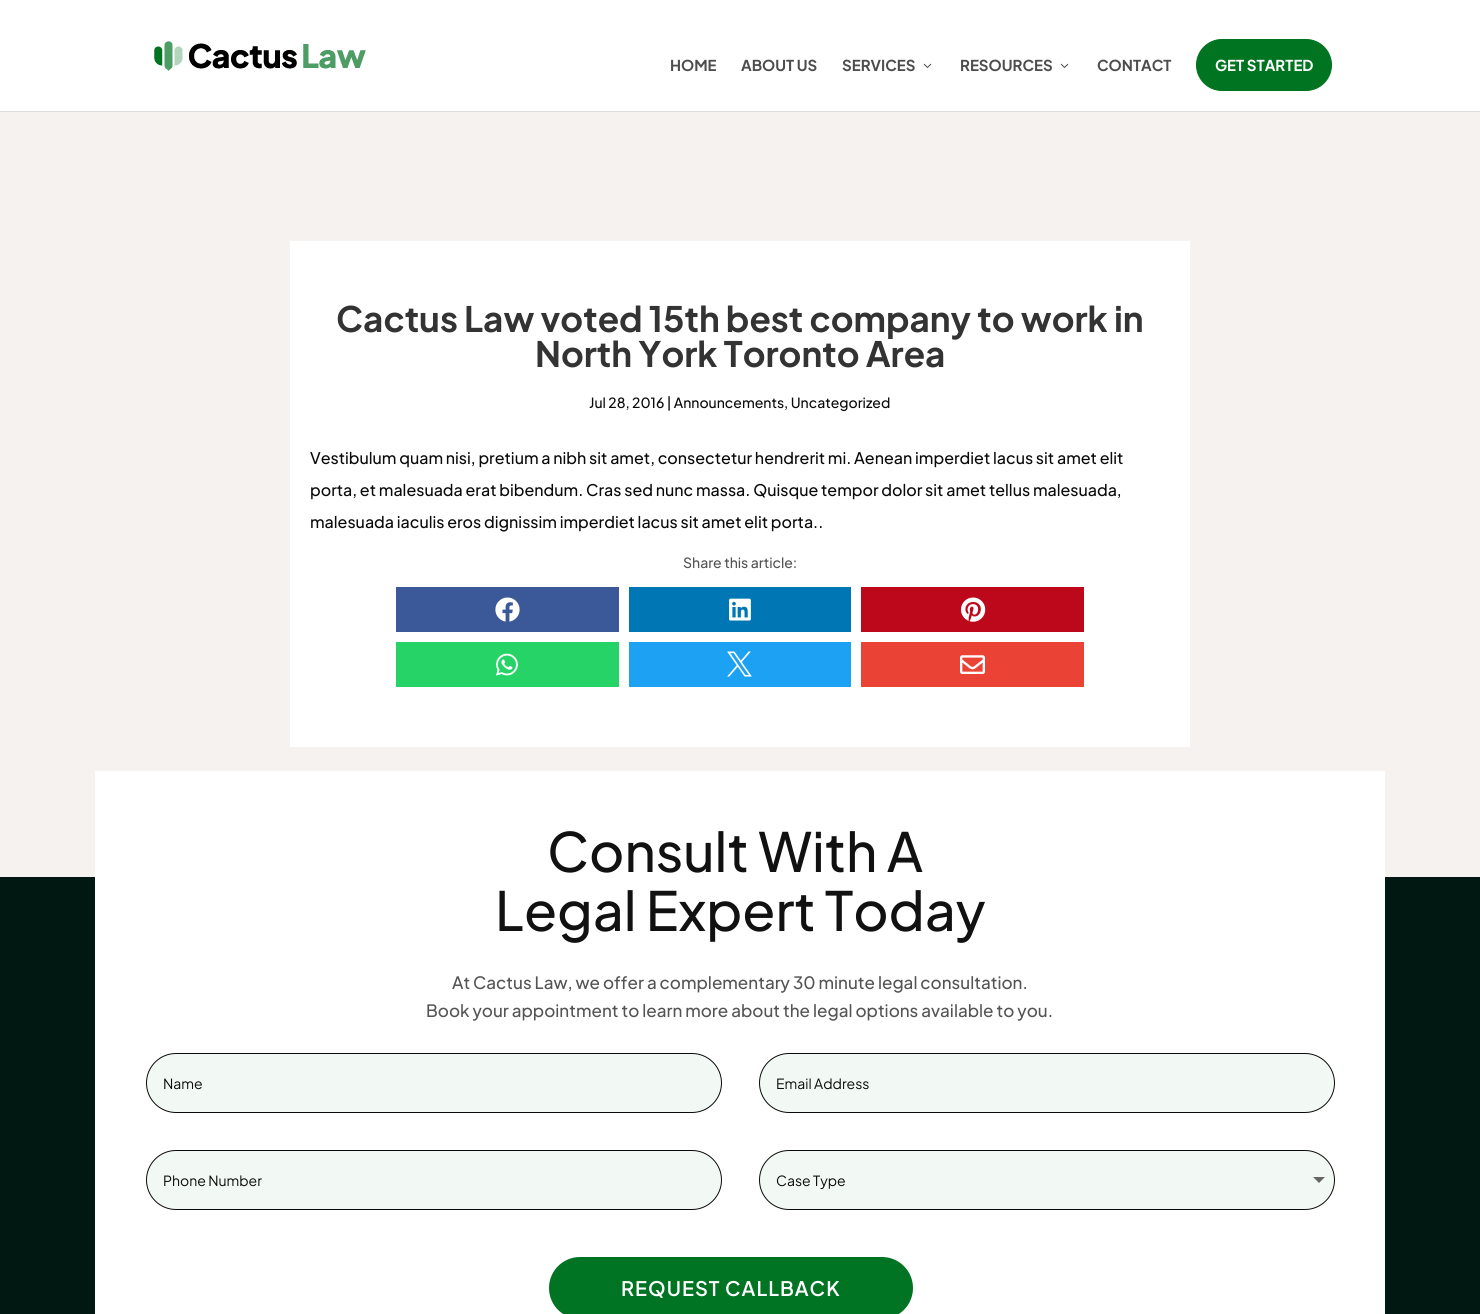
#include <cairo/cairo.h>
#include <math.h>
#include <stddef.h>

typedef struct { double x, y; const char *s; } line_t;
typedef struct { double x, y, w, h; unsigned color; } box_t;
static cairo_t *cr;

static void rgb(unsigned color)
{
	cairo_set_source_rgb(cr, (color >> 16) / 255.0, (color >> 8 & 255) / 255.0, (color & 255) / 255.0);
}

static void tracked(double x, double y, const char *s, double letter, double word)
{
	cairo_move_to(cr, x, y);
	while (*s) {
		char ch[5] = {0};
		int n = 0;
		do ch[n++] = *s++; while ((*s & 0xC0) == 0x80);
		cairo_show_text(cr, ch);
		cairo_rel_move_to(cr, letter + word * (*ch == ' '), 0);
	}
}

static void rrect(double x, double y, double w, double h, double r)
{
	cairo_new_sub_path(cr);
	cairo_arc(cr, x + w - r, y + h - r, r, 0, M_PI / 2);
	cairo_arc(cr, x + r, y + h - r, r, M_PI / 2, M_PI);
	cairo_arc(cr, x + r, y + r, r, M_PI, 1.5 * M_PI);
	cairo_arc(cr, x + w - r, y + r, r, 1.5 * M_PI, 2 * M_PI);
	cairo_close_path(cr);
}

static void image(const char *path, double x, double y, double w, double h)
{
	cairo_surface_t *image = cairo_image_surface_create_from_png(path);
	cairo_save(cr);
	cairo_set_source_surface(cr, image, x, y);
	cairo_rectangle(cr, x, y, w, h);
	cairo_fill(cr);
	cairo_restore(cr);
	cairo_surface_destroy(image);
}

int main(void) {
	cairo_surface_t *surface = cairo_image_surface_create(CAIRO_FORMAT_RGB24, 1480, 1314);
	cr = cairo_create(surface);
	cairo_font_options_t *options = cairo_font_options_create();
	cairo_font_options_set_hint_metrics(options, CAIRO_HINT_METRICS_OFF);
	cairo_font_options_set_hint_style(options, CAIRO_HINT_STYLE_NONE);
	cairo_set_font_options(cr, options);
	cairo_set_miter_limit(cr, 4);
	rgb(0xffffff);
	cairo_paint(cr);
	rgb(0xdddad8);
	cairo_rectangle(cr, 0, 111, 1480, 1);
	cairo_fill(cr);
	image("img/1.png", 154, 41, 212, 30);
	image("img/2.png", 923, 63, 9, 5);
	image("img/2.png", 1060, 63, 9, 5);
	rgb(0x007420);
	rrect(1196.5, 39.5, 135, 51, 25.5);
	cairo_fill_preserve(cr);
	cairo_set_line_width(cr, 1);
	cairo_stroke(cr);
	{
		static const box_t items[] = {
			{0, 112, 1480, 765, 0xf5f2f0},
			{290, 241, 900, 506, 0xffffff},
			{396, 587, 223, 45, 0x3b5998},
		};
		for (size_t i = 0; i < sizeof items / sizeof *items; i++) {
			rgb(items[i].color);
			cairo_rectangle(cr, items[i].x, items[i].y, items[i].w, items[i].h);
			cairo_fill(cr);
		}
	}
	image("img/3.png", 495, 597, 25, 25);
	rgb(0x0077b5);
	cairo_rectangle(cr, 629, 587, 222, 45);
	cairo_fill(cr);
	image("img/4.png", 729, 598, 22, 23);
	rgb(0xbd081c);
	cairo_rectangle(cr, 861, 587, 223, 45);
	cairo_fill(cr);
	image("img/5.png", 961, 597, 25, 25);
	rgb(0x25d366);
	cairo_rectangle(cr, 396, 642, 223, 45);
	cairo_fill(cr);
	image("img/6.png", 496, 653, 22, 23);
	rgb(0x1da1f2);
	cairo_rectangle(cr, 629, 642, 222, 45);
	cairo_fill(cr);
	image("img/7.png", 727, 651, 25, 26);
	rgb(0xea4335);
	cairo_rectangle(cr, 861, 642, 223, 45);
	cairo_fill(cr);
	image("img/8.png", 960, 655, 25, 19);
	rgb(0x011711);
	cairo_rectangle(cr, 0, 877, 1480, 437);
	cairo_fill(cr);
	rgb(0xffffff);
	cairo_rectangle(cr, 95, 771, 1290, 543);
	cairo_fill(cr);
	rgb(0xf2f8f4);
	rrect(146.5, 1053.5, 575, 59, 29.5);
	cairo_fill_preserve(cr);
	rgb(0x0a0a0a);
	cairo_stroke(cr);
	rgb(0xf2f8f4);
	rrect(759.5, 1053.5, 575, 59, 29.5);
	cairo_fill_preserve(cr);
	rgb(0x0a0a0a);
	cairo_stroke(cr);
	rgb(0xf2f8f4);
	rrect(146.5, 1150.5, 575, 59, 29.5);
	cairo_fill_preserve(cr);
	rgb(0x0a0a0a);
	cairo_stroke(cr);
	rgb(0xf2f8f4);
	rrect(759.5, 1150.5, 575, 59, 29.5);
	cairo_fill_preserve(cr);
	rgb(0x0a0a0a);
	cairo_stroke(cr);
	rgb(0x666666);
	cairo_new_path(cr);
	cairo_move_to(cr, 1313, 1177);
	cairo_line_to(cr, 1325, 1177);
	cairo_line_to(cr, 1319, 1183);
	cairo_close_path(cr);
	cairo_fill(cr);
	rgb(0x007422);
	rrect(550, 1258, 362, 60, 30);
	cairo_fill_preserve(cr);
	cairo_set_line_width(cr, 2);
	cairo_stroke(cr);
	cairo_select_font_face(cr, "Plus Jakarta Sans", CAIRO_FONT_SLANT_NORMAL, CAIRO_FONT_WEIGHT_BOLD);
	cairo_set_font_size(cr, 15);
	rgb(0x4d4d4d);
	{
		static const line_t items[] = {
			{670, 71, "HOME"},
			{741, 71, "ABOUT US"},
			{842, 71, "SERVICES"},
			{960, 71, "RESOURCES"},
			{1097, 71, "CONTACT"},
		};
		for (size_t i = 0; i < sizeof items / sizeof *items; i++) {
			cairo_move_to(cr, items[i].x, items[i].y);
			cairo_show_text(cr, items[i].s);
		}
	}
	rgb(0xffffff);
	cairo_move_to(cr, 1215, 71);
	cairo_show_text(cr, "GET STARTED");
	cairo_set_font_size(cr, 35);
	rgb(0x333333);
	cairo_move_to(cr, 336, 332);
	cairo_show_text(cr, "Cactus Law voted 15th best company to work in");
	cairo_move_to(cr, 535, 367);
	cairo_show_text(cr, "North York Toronto Area");
	cairo_select_font_face(cr, "Plus Jakarta Sans Medium", CAIRO_FONT_SLANT_NORMAL, CAIRO_FONT_WEIGHT_NORMAL);
	cairo_set_font_size(cr, 14);
	rgb(0x0a0a0a);
	cairo_move_to(cr, 589, 408);
	cairo_show_text(cr, "Jul 28, 2016 | Announcements, Uncategorized");
	cairo_set_font_size(cr, 16);
	{
		static const line_t items[] = {
			{310, 464, "Vestibulum quam nisi, pretium a nibh sit amet, consectetur hendrerit mi. Aenean imperdiet lacus sit amet elit"},
			{310, 496, "porta, et malesuada erat bibendum. Cras sed nunc massa. Quisque tempor dolor sit amet tellus malesuada,"},
			{310, 528, "malesuada iaculis eros dignissim imperdiet lacus sit amet elit porta.."},
		};
		for (size_t i = 0; i < sizeof items / sizeof *items; i++) {
			cairo_move_to(cr, items[i].x, items[i].y);
			cairo_show_text(cr, items[i].s);
		}
	}
	cairo_set_font_size(cr, 14);
	rgb(0x545454);
	cairo_move_to(cr, 683, 568);
	cairo_show_text(cr, "Share this article:");
	cairo_set_font_size(cr, 54);
	rgb(0x111112);
	cairo_move_to(cr, 547, 872);
	cairo_show_text(cr, "Consult With A");
	cairo_move_to(cr, 495, 931);
	cairo_show_text(cr, "Legal Expert Today");
	cairo_set_font_size(cr, 17);
	rgb(0x545454);
	cairo_move_to(cr, 452, 989);
	cairo_show_text(cr, "At Cactus Law, we offer a complementary 30 minute legal consultation.");
	cairo_move_to(cr, 426, 1017);
	cairo_show_text(cr, "Book your appointment to learn more about the legal options available to you.");
	cairo_select_font_face(cr, "Plus Jakarta Sans", CAIRO_FONT_SLANT_NORMAL, CAIRO_FONT_WEIGHT_NORMAL);
	cairo_set_font_size(cr, 14);
	rgb(0x0a0a0a);
	{
		static const line_t items[] = {
			{163, 1089, "Name"},
			{776, 1089, "Email Address"},
			{163, 1186, "Phone Number"},
			{776, 1186, "Case Type"},
		};
		for (size_t i = 0; i < sizeof items / sizeof *items; i++) {
			cairo_move_to(cr, items[i].x, items[i].y);
			cairo_show_text(cr, items[i].s);
		}
	}
	cairo_select_font_face(cr, "Plus Jakarta Sans SemiBold", CAIRO_FONT_SLANT_NORMAL, CAIRO_FONT_WEIGHT_NORMAL);
	cairo_set_font_size(cr, 20);
	rgb(0xffffff);
	tracked(621, 1296, "REQUEST CALLBACK", 1, 0);
	cairo_surface_write_to_png(surface, "page.png");
	cairo_font_options_destroy(options);
	cairo_destroy(cr);
	cairo_surface_destroy(surface);
	return 0;
}
